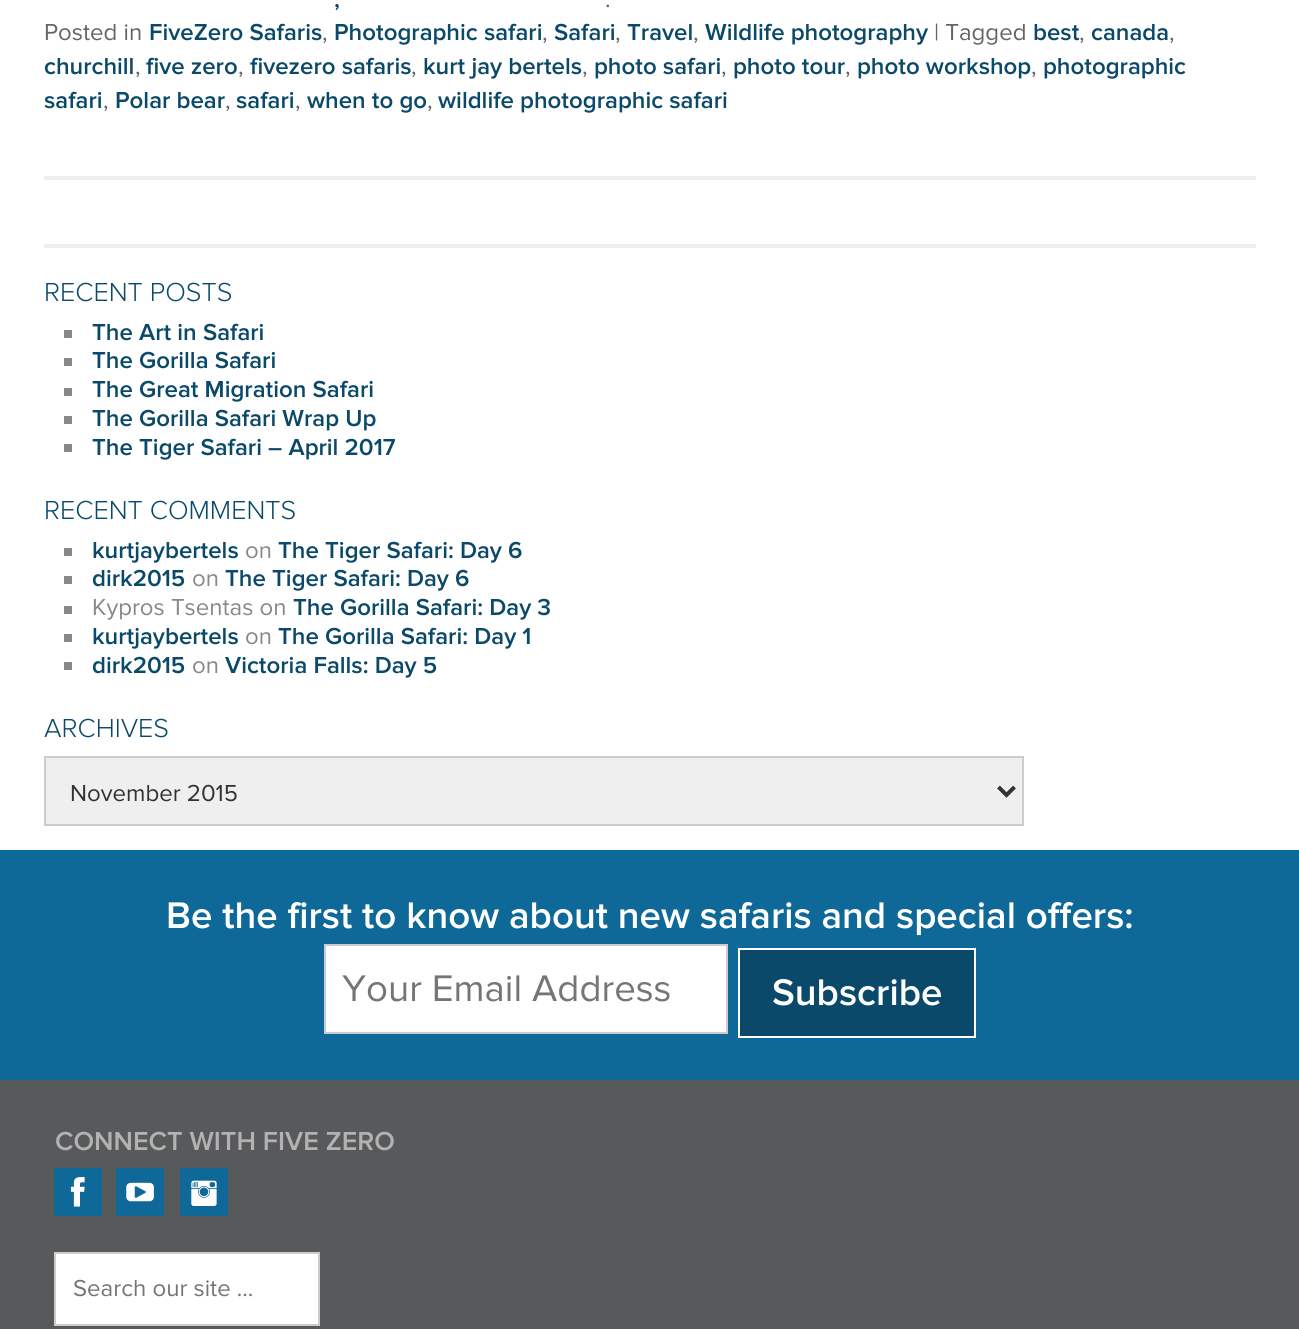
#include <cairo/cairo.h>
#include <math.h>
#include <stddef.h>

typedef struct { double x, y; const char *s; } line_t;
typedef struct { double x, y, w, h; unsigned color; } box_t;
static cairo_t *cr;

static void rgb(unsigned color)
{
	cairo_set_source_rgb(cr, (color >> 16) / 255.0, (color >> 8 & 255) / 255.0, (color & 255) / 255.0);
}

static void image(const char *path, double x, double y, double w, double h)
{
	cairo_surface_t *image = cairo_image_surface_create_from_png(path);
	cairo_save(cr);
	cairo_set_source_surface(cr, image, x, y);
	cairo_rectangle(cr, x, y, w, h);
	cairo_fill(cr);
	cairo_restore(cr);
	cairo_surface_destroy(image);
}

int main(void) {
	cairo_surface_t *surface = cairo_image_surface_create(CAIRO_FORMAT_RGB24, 1299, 1329);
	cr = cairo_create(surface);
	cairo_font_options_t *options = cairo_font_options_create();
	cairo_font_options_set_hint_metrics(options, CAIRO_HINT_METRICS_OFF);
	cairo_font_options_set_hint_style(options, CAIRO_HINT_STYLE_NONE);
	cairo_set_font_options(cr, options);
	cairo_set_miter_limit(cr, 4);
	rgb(0xffffff);
	cairo_paint(cr);
	{
		static const box_t items[] = {
			{44, 176, 1212, 4, 0xefefef},
			{44, 244, 1212, 4, 0xefefef},
			{64, 330, 8, 8, 0x888888},
			{64, 358, 8, 8, 0x888888},
			{64, 388, 8, 8, 0x888888},
			{64, 416, 8, 8, 0x888888},
			{64, 444, 8, 8, 0x888888},
			{64, 548, 8, 8, 0x888888},
			{64, 576, 8, 8, 0x888888},
			{64, 606, 8, 8, 0x888888},
			{64, 634, 8, 8, 0x888888},
			{64, 662, 8, 8, 0x888888},
		};
		for (size_t i = 0; i < sizeof items / sizeof *items; i++) {
			rgb(items[i].color);
			cairo_rectangle(cr, items[i].x, items[i].y, items[i].w, items[i].h);
			cairo_fill(cr);
		}
	}
	rgb(0xefefef);
	cairo_rectangle(cr, 45, 757, 978, 68);
	cairo_fill_preserve(cr);
	rgb(0xcccccc);
	cairo_stroke(cr);
	cairo_new_path(cr);
	cairo_move_to(cr, 998.5, 787);
	cairo_line_to(cr, 1006.5, 795);
	cairo_line_to(cr, 1014.5, 787);
	rgb(0x333333);
	cairo_set_line_width(cr, 4);
	cairo_stroke(cr);
	rgb(0x0e6999);
	cairo_rectangle(cr, 0, 850, 1299, 230);
	cairo_fill(cr);
	rgb(0xffffff);
	cairo_rectangle(cr, 325, 945, 402, 88);
	cairo_fill_preserve(cr);
	rgb(0xcccccc);
	cairo_set_line_width(cr, 2);
	cairo_stroke(cr);
	rgb(0x0a496a);
	cairo_rectangle(cr, 739, 949, 236, 88);
	cairo_fill_preserve(cr);
	rgb(0xffffff);
	cairo_stroke(cr);
	rgb(0x58595b);
	cairo_rectangle(cr, 0, 1080, 1299, 249);
	cairo_fill(cr);
	rgb(0x0e6999);
	cairo_rectangle(cr, 54, 1168, 48, 48);
	cairo_fill(cr);
	image("img/1.png", 70, 1177, 15, 30);
	cairo_rectangle(cr, 116, 1168, 48, 48);
	cairo_fill(cr);
	image("img/2.png", 126, 1182, 28, 20);
	cairo_rectangle(cr, 180, 1168, 48, 48);
	cairo_fill(cr);
	image("img/3.png", 191, 1180, 26, 26);
	rgb(0xffffff);
	cairo_rectangle(cr, 55, 1253, 264, 72);
	cairo_fill_preserve(cr);
	rgb(0xcccccc);
	cairo_stroke(cr);
	cairo_select_font_face(cr, "Proxima Nova SemiBold", CAIRO_FONT_SLANT_NORMAL, CAIRO_FONT_WEIGHT_NORMAL);
	cairo_set_font_size(cr, 24);
	rgb(0x0a496a);
	cairo_move_to(cr, 334, 7);
	cairo_show_text(cr, ",");
	cairo_select_font_face(cr, "Proxima Nova", CAIRO_FONT_SLANT_NORMAL, CAIRO_FONT_WEIGHT_NORMAL);
	rgb(0x666566);
	cairo_move_to(cr, 605, 7);
	cairo_show_text(cr, ".");
	cairo_move_to(cr, 44, 40);
	cairo_show_text(cr, "Posted in");
	cairo_select_font_face(cr, "Proxima Nova SemiBold", CAIRO_FONT_SLANT_NORMAL, CAIRO_FONT_WEIGHT_NORMAL);
	rgb(0x0a496a);
	cairo_move_to(cr, 149, 40);
	cairo_show_text(cr, "FiveZero Safaris");
	cairo_select_font_face(cr, "Proxima Nova", CAIRO_FONT_SLANT_NORMAL, CAIRO_FONT_WEIGHT_NORMAL);
	rgb(0x666566);
	cairo_move_to(cr, 322, 40);
	cairo_show_text(cr, ",");
	cairo_select_font_face(cr, "Proxima Nova SemiBold", CAIRO_FONT_SLANT_NORMAL, CAIRO_FONT_WEIGHT_NORMAL);
	rgb(0x0a496a);
	cairo_move_to(cr, 334, 40);
	cairo_show_text(cr, "Photographic safari");
	cairo_select_font_face(cr, "Proxima Nova", CAIRO_FONT_SLANT_NORMAL, CAIRO_FONT_WEIGHT_NORMAL);
	rgb(0x666566);
	cairo_move_to(cr, 542, 40);
	cairo_show_text(cr, ",");
	cairo_select_font_face(cr, "Proxima Nova SemiBold", CAIRO_FONT_SLANT_NORMAL, CAIRO_FONT_WEIGHT_NORMAL);
	rgb(0x0a496a);
	cairo_move_to(cr, 554, 40);
	cairo_show_text(cr, "Safari");
	cairo_select_font_face(cr, "Proxima Nova", CAIRO_FONT_SLANT_NORMAL, CAIRO_FONT_WEIGHT_NORMAL);
	rgb(0x666566);
	cairo_move_to(cr, 615, 40);
	cairo_show_text(cr, ",");
	cairo_select_font_face(cr, "Proxima Nova SemiBold", CAIRO_FONT_SLANT_NORMAL, CAIRO_FONT_WEIGHT_NORMAL);
	rgb(0x0a496a);
	cairo_move_to(cr, 627, 40);
	cairo_show_text(cr, "Travel");
	cairo_select_font_face(cr, "Proxima Nova", CAIRO_FONT_SLANT_NORMAL, CAIRO_FONT_WEIGHT_NORMAL);
	rgb(0x666566);
	cairo_move_to(cr, 693, 40);
	cairo_show_text(cr, ",");
	cairo_select_font_face(cr, "Proxima Nova SemiBold", CAIRO_FONT_SLANT_NORMAL, CAIRO_FONT_WEIGHT_NORMAL);
	rgb(0x0a496a);
	cairo_move_to(cr, 705, 40);
	cairo_show_text(cr, "Wildlife photography");
	cairo_select_font_face(cr, "Proxima Nova", CAIRO_FONT_SLANT_NORMAL, CAIRO_FONT_WEIGHT_NORMAL);
	rgb(0x666566);
	cairo_move_to(cr, 934, 40);
	cairo_show_text(cr, "| Tagged");
	cairo_select_font_face(cr, "Proxima Nova SemiBold", CAIRO_FONT_SLANT_NORMAL, CAIRO_FONT_WEIGHT_NORMAL);
	rgb(0x0a496a);
	cairo_move_to(cr, 1033, 40);
	cairo_show_text(cr, "best");
	cairo_select_font_face(cr, "Proxima Nova", CAIRO_FONT_SLANT_NORMAL, CAIRO_FONT_WEIGHT_NORMAL);
	rgb(0x666566);
	cairo_move_to(cr, 1079, 40);
	cairo_show_text(cr, ",");
	cairo_select_font_face(cr, "Proxima Nova SemiBold", CAIRO_FONT_SLANT_NORMAL, CAIRO_FONT_WEIGHT_NORMAL);
	rgb(0x0a496a);
	cairo_move_to(cr, 1091, 40);
	cairo_show_text(cr, "canada");
	cairo_select_font_face(cr, "Proxima Nova", CAIRO_FONT_SLANT_NORMAL, CAIRO_FONT_WEIGHT_NORMAL);
	rgb(0x666566);
	cairo_move_to(cr, 1169, 40);
	cairo_show_text(cr, ",");
	cairo_select_font_face(cr, "Proxima Nova SemiBold", CAIRO_FONT_SLANT_NORMAL, CAIRO_FONT_WEIGHT_NORMAL);
	rgb(0x0a496a);
	cairo_move_to(cr, 44, 74);
	cairo_show_text(cr, "churchill");
	cairo_select_font_face(cr, "Proxima Nova", CAIRO_FONT_SLANT_NORMAL, CAIRO_FONT_WEIGHT_NORMAL);
	rgb(0x666566);
	cairo_move_to(cr, 135, 74);
	cairo_show_text(cr, ",");
	cairo_select_font_face(cr, "Proxima Nova SemiBold", CAIRO_FONT_SLANT_NORMAL, CAIRO_FONT_WEIGHT_NORMAL);
	rgb(0x0a496a);
	cairo_move_to(cr, 146, 74);
	cairo_show_text(cr, "five zero");
	cairo_select_font_face(cr, "Proxima Nova", CAIRO_FONT_SLANT_NORMAL, CAIRO_FONT_WEIGHT_NORMAL);
	rgb(0x666566);
	cairo_move_to(cr, 238, 74);
	cairo_show_text(cr, ",");
	cairo_select_font_face(cr, "Proxima Nova SemiBold", CAIRO_FONT_SLANT_NORMAL, CAIRO_FONT_WEIGHT_NORMAL);
	rgb(0x0a496a);
	cairo_move_to(cr, 250, 74);
	cairo_show_text(cr, "fivezero safaris");
	cairo_select_font_face(cr, "Proxima Nova", CAIRO_FONT_SLANT_NORMAL, CAIRO_FONT_WEIGHT_NORMAL);
	rgb(0x666566);
	cairo_move_to(cr, 411, 74);
	cairo_show_text(cr, ",");
	cairo_select_font_face(cr, "Proxima Nova SemiBold", CAIRO_FONT_SLANT_NORMAL, CAIRO_FONT_WEIGHT_NORMAL);
	rgb(0x0a496a);
	cairo_move_to(cr, 423, 74);
	cairo_show_text(cr, "kurt jay bertels");
	cairo_select_font_face(cr, "Proxima Nova", CAIRO_FONT_SLANT_NORMAL, CAIRO_FONT_WEIGHT_NORMAL);
	rgb(0x666566);
	cairo_move_to(cr, 582, 74);
	cairo_show_text(cr, ",");
	cairo_select_font_face(cr, "Proxima Nova SemiBold", CAIRO_FONT_SLANT_NORMAL, CAIRO_FONT_WEIGHT_NORMAL);
	rgb(0x0a496a);
	cairo_move_to(cr, 594, 74);
	cairo_show_text(cr, "photo safari");
	cairo_select_font_face(cr, "Proxima Nova", CAIRO_FONT_SLANT_NORMAL, CAIRO_FONT_WEIGHT_NORMAL);
	rgb(0x666566);
	cairo_move_to(cr, 721, 74);
	cairo_show_text(cr, ",");
	cairo_select_font_face(cr, "Proxima Nova SemiBold", CAIRO_FONT_SLANT_NORMAL, CAIRO_FONT_WEIGHT_NORMAL);
	rgb(0x0a496a);
	cairo_move_to(cr, 733, 74);
	cairo_show_text(cr, "photo tour");
	cairo_select_font_face(cr, "Proxima Nova", CAIRO_FONT_SLANT_NORMAL, CAIRO_FONT_WEIGHT_NORMAL);
	rgb(0x666566);
	cairo_move_to(cr, 845, 74);
	cairo_show_text(cr, ",");
	cairo_select_font_face(cr, "Proxima Nova SemiBold", CAIRO_FONT_SLANT_NORMAL, CAIRO_FONT_WEIGHT_NORMAL);
	rgb(0x0a496a);
	cairo_move_to(cr, 857, 74);
	cairo_show_text(cr, "photo workshop");
	cairo_select_font_face(cr, "Proxima Nova", CAIRO_FONT_SLANT_NORMAL, CAIRO_FONT_WEIGHT_NORMAL);
	rgb(0x666566);
	cairo_move_to(cr, 1031, 74);
	cairo_show_text(cr, ",");
	cairo_select_font_face(cr, "Proxima Nova SemiBold", CAIRO_FONT_SLANT_NORMAL, CAIRO_FONT_WEIGHT_NORMAL);
	rgb(0x0a496a);
	cairo_move_to(cr, 1043, 74);
	cairo_show_text(cr, "photographic");
	cairo_move_to(cr, 44, 108);
	cairo_show_text(cr, "safari");
	cairo_select_font_face(cr, "Proxima Nova", CAIRO_FONT_SLANT_NORMAL, CAIRO_FONT_WEIGHT_NORMAL);
	rgb(0x666566);
	cairo_move_to(cr, 103, 108);
	cairo_show_text(cr, ",");
	cairo_select_font_face(cr, "Proxima Nova SemiBold", CAIRO_FONT_SLANT_NORMAL, CAIRO_FONT_WEIGHT_NORMAL);
	rgb(0x0a496a);
	cairo_move_to(cr, 115, 108);
	cairo_show_text(cr, "Polar bear");
	cairo_select_font_face(cr, "Proxima Nova", CAIRO_FONT_SLANT_NORMAL, CAIRO_FONT_WEIGHT_NORMAL);
	rgb(0x666566);
	cairo_move_to(cr, 225, 108);
	cairo_show_text(cr, ",");
	cairo_select_font_face(cr, "Proxima Nova SemiBold", CAIRO_FONT_SLANT_NORMAL, CAIRO_FONT_WEIGHT_NORMAL);
	rgb(0x0a496a);
	cairo_move_to(cr, 236, 108);
	cairo_show_text(cr, "safari");
	cairo_select_font_face(cr, "Proxima Nova", CAIRO_FONT_SLANT_NORMAL, CAIRO_FONT_WEIGHT_NORMAL);
	rgb(0x666566);
	cairo_move_to(cr, 295, 108);
	cairo_show_text(cr, ",");
	cairo_select_font_face(cr, "Proxima Nova SemiBold", CAIRO_FONT_SLANT_NORMAL, CAIRO_FONT_WEIGHT_NORMAL);
	rgb(0x0a496a);
	cairo_move_to(cr, 307, 108);
	cairo_show_text(cr, "when to go");
	cairo_select_font_face(cr, "Proxima Nova", CAIRO_FONT_SLANT_NORMAL, CAIRO_FONT_WEIGHT_NORMAL);
	rgb(0x666566);
	cairo_move_to(cr, 427, 108);
	cairo_show_text(cr, ",");
	cairo_select_font_face(cr, "Proxima Nova SemiBold", CAIRO_FONT_SLANT_NORMAL, CAIRO_FONT_WEIGHT_NORMAL);
	rgb(0x0a496a);
	cairo_move_to(cr, 438, 108);
	cairo_show_text(cr, "wildlife photographic safari");
	cairo_select_font_face(cr, "Proxima Nova Light", CAIRO_FONT_SLANT_NORMAL, CAIRO_FONT_WEIGHT_NORMAL);
	cairo_set_font_size(cr, 27);
	cairo_move_to(cr, 44, 301);
	cairo_show_text(cr, "RECENT POSTS");
	cairo_select_font_face(cr, "Proxima Nova SemiBold", CAIRO_FONT_SLANT_NORMAL, CAIRO_FONT_WEIGHT_NORMAL);
	cairo_set_font_size(cr, 24);
	{
		static const line_t items[] = {
			{92, 340, "The Art in Safari"},
			{92, 368, "The Gorilla Safari"},
			{92, 397, "The Great Migration Safari"},
			{92, 426, "The Gorilla Safari Wrap Up"},
			{92, 455, "The Tiger Safari – April 2017"},
		};
		for (size_t i = 0; i < sizeof items / sizeof *items; i++) {
			cairo_move_to(cr, items[i].x, items[i].y);
			cairo_show_text(cr, items[i].s);
		}
	}
	cairo_select_font_face(cr, "Proxima Nova Light", CAIRO_FONT_SLANT_NORMAL, CAIRO_FONT_WEIGHT_NORMAL);
	cairo_set_font_size(cr, 27);
	cairo_move_to(cr, 44, 519);
	cairo_show_text(cr, "RECENT COMMENTS");
	cairo_select_font_face(cr, "Proxima Nova SemiBold", CAIRO_FONT_SLANT_NORMAL, CAIRO_FONT_WEIGHT_NORMAL);
	cairo_set_font_size(cr, 24);
	cairo_move_to(cr, 92, 558);
	cairo_show_text(cr, "kurtjaybertels");
	cairo_select_font_face(cr, "Proxima Nova", CAIRO_FONT_SLANT_NORMAL, CAIRO_FONT_WEIGHT_NORMAL);
	rgb(0x888888);
	cairo_move_to(cr, 245, 558);
	cairo_show_text(cr, "on");
	cairo_select_font_face(cr, "Proxima Nova SemiBold", CAIRO_FONT_SLANT_NORMAL, CAIRO_FONT_WEIGHT_NORMAL);
	rgb(0x0a496a);
	cairo_move_to(cr, 278, 558);
	cairo_show_text(cr, "The Tiger Safari: Day 6");
	cairo_move_to(cr, 92, 586);
	cairo_show_text(cr, "dirk2015");
	cairo_select_font_face(cr, "Proxima Nova", CAIRO_FONT_SLANT_NORMAL, CAIRO_FONT_WEIGHT_NORMAL);
	rgb(0x888888);
	cairo_move_to(cr, 192, 586);
	cairo_show_text(cr, "on");
	cairo_select_font_face(cr, "Proxima Nova SemiBold", CAIRO_FONT_SLANT_NORMAL, CAIRO_FONT_WEIGHT_NORMAL);
	rgb(0x0a496a);
	cairo_move_to(cr, 225, 586);
	cairo_show_text(cr, "The Tiger Safari: Day 6");
	cairo_select_font_face(cr, "Proxima Nova", CAIRO_FONT_SLANT_NORMAL, CAIRO_FONT_WEIGHT_NORMAL);
	rgb(0x888888);
	cairo_move_to(cr, 92, 615);
	cairo_show_text(cr, "Kypros Tsentas on");
	cairo_select_font_face(cr, "Proxima Nova SemiBold", CAIRO_FONT_SLANT_NORMAL, CAIRO_FONT_WEIGHT_NORMAL);
	rgb(0x0a496a);
	cairo_move_to(cr, 293, 615);
	cairo_show_text(cr, "The Gorilla Safari: Day 3");
	cairo_move_to(cr, 92, 644);
	cairo_show_text(cr, "kurtjaybertels");
	cairo_select_font_face(cr, "Proxima Nova", CAIRO_FONT_SLANT_NORMAL, CAIRO_FONT_WEIGHT_NORMAL);
	rgb(0x888888);
	cairo_move_to(cr, 245, 644);
	cairo_show_text(cr, "on");
	cairo_select_font_face(cr, "Proxima Nova SemiBold", CAIRO_FONT_SLANT_NORMAL, CAIRO_FONT_WEIGHT_NORMAL);
	rgb(0x0a496a);
	cairo_move_to(cr, 278, 644);
	cairo_show_text(cr, "The Gorilla Safari: Day 1");
	cairo_move_to(cr, 92, 673);
	cairo_show_text(cr, "dirk2015");
	cairo_select_font_face(cr, "Proxima Nova", CAIRO_FONT_SLANT_NORMAL, CAIRO_FONT_WEIGHT_NORMAL);
	rgb(0x888888);
	cairo_move_to(cr, 192, 673);
	cairo_show_text(cr, "on");
	cairo_select_font_face(cr, "Proxima Nova SemiBold", CAIRO_FONT_SLANT_NORMAL, CAIRO_FONT_WEIGHT_NORMAL);
	rgb(0x0a496a);
	cairo_move_to(cr, 225, 673);
	cairo_show_text(cr, "Victoria Falls: Day 5");
	cairo_select_font_face(cr, "Proxima Nova Light", CAIRO_FONT_SLANT_NORMAL, CAIRO_FONT_WEIGHT_NORMAL);
	cairo_set_font_size(cr, 27);
	cairo_move_to(cr, 44, 737);
	cairo_show_text(cr, "ARCHIVES");
	cairo_select_font_face(cr, "Proxima Nova", CAIRO_FONT_SLANT_NORMAL, CAIRO_FONT_WEIGHT_NORMAL);
	cairo_set_font_size(cr, 24);
	rgb(0x333333);
	cairo_move_to(cr, 70, 801);
	cairo_show_text(cr, "November 2015");
	cairo_select_font_face(cr, "Proxima Nova SemiBold", CAIRO_FONT_SLANT_NORMAL, CAIRO_FONT_WEIGHT_NORMAL);
	cairo_set_font_size(cr, 38.4);
	rgb(0xffffff);
	cairo_move_to(cr, 166, 928);
	cairo_show_text(cr, "Be the first to know about new safaris and special offers:");
	cairo_select_font_face(cr, "Proxima Nova", CAIRO_FONT_SLANT_NORMAL, CAIRO_FONT_WEIGHT_NORMAL);
	rgb(0x757575);
	cairo_move_to(cr, 342, 1001);
	cairo_show_text(cr, "Your Email Address");
	cairo_select_font_face(cr, "Proxima Nova SemiBold", CAIRO_FONT_SLANT_NORMAL, CAIRO_FONT_WEIGHT_NORMAL);
	rgb(0xffffff);
	cairo_move_to(cr, 772, 1005);
	cairo_show_text(cr, "Subscribe");
	cairo_set_font_size(cr, 27);
	rgb(0xb2b2b2);
	cairo_move_to(cr, 55, 1150);
	cairo_show_text(cr, "CONNECT WITH FIVE ZERO");
	cairo_select_font_face(cr, "Proxima Nova", CAIRO_FONT_SLANT_NORMAL, CAIRO_FONT_WEIGHT_NORMAL);
	cairo_set_font_size(cr, 24);
	rgb(0x757575);
	cairo_move_to(cr, 73, 1296);
	cairo_show_text(cr, "Search our site …");
	cairo_surface_write_to_png(surface, "page.png");
	cairo_font_options_destroy(options);
	cairo_destroy(cr);
	cairo_surface_destroy(surface);
	return 0;
}
